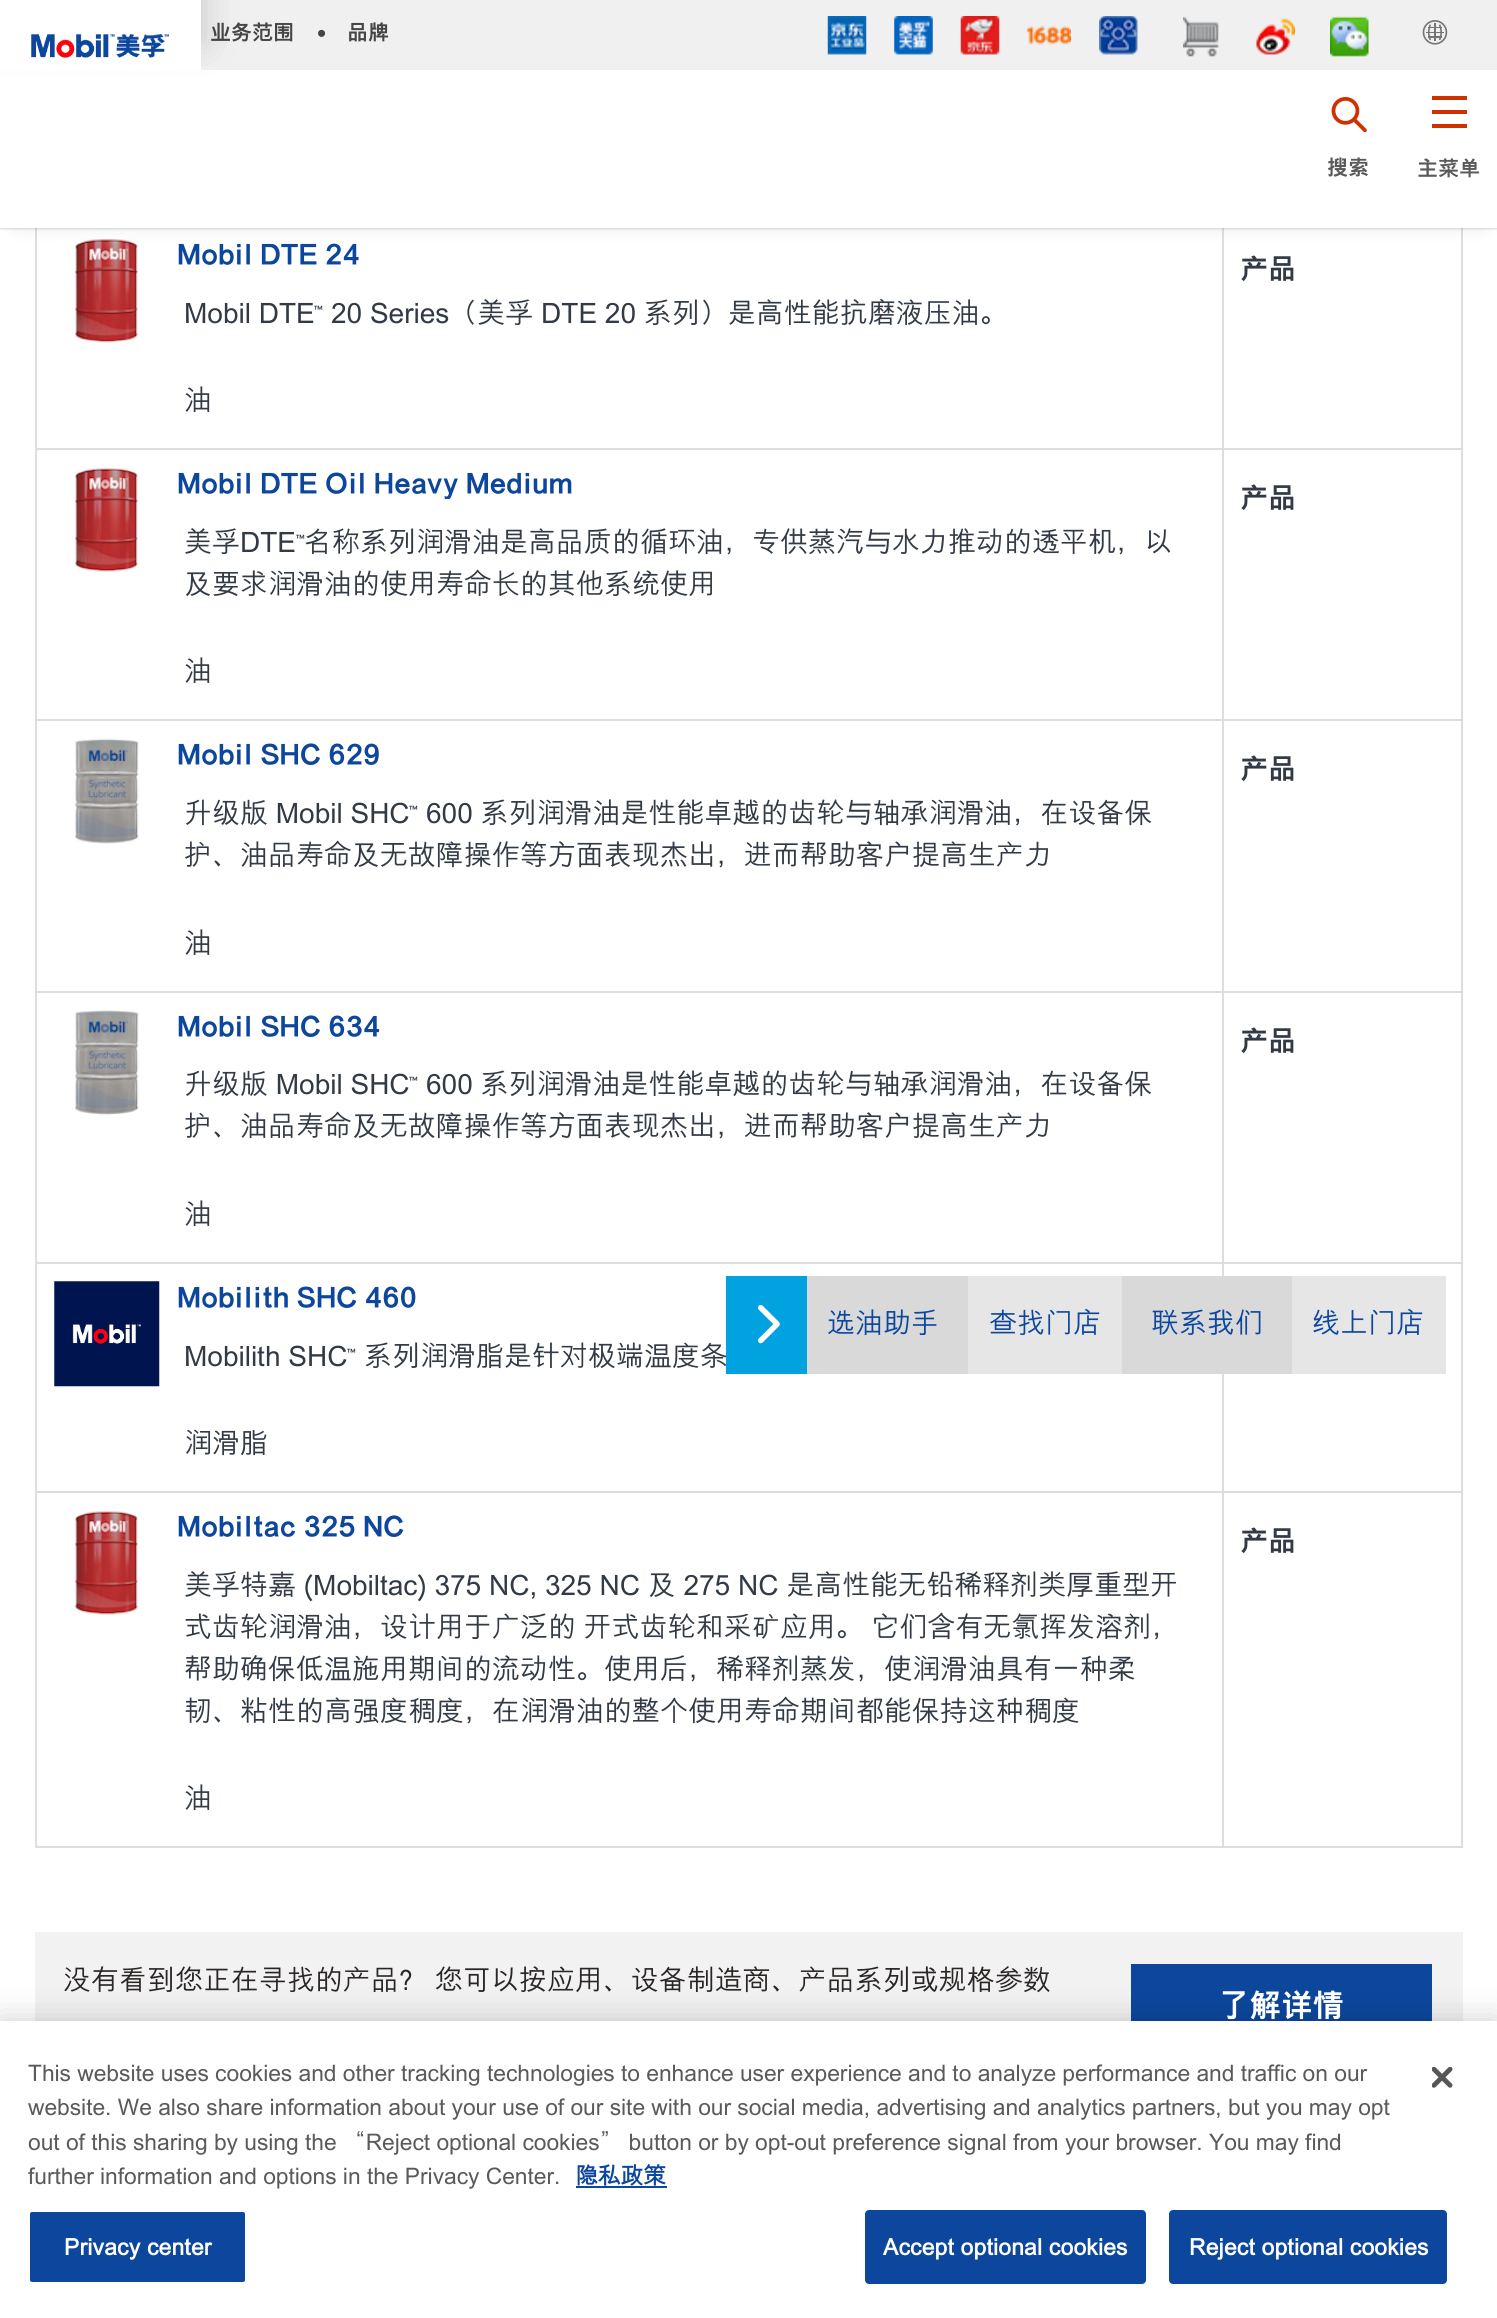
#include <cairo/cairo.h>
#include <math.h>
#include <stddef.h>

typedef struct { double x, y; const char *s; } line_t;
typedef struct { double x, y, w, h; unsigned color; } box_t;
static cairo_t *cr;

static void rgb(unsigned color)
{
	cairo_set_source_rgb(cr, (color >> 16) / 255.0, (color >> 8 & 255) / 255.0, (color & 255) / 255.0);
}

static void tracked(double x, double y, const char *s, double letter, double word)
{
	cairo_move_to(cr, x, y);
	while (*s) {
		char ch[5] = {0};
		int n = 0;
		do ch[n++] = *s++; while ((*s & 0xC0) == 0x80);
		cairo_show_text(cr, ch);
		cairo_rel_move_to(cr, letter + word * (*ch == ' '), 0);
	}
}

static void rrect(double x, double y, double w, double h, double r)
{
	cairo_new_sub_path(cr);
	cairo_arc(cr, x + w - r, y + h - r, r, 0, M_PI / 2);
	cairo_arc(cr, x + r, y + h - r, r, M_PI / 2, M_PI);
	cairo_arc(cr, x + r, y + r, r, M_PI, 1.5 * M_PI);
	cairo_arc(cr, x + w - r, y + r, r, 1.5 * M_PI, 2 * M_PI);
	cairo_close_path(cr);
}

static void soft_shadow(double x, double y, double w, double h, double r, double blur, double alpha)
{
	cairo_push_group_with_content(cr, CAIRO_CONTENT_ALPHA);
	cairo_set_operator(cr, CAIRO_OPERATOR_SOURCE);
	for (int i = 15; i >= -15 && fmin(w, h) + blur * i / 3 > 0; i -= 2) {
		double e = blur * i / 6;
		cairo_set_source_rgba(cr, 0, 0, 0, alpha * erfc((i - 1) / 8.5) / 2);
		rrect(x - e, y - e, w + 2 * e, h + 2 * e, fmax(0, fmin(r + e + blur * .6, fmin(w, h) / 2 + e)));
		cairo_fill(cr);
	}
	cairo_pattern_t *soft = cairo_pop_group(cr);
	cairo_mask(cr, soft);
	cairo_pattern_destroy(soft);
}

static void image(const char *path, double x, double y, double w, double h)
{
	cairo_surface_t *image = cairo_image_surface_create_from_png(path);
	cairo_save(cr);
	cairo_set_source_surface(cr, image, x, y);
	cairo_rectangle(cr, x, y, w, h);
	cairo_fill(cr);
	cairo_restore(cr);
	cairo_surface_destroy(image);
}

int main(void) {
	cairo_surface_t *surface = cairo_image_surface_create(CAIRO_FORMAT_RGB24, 1497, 2318);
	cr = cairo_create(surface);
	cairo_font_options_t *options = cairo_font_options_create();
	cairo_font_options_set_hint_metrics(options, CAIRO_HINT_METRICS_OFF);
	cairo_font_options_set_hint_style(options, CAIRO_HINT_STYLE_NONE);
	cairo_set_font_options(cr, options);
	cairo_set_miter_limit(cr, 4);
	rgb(0xffffff);
	cairo_paint(cr);
	cairo_rectangle(cr, 36, 220, 1426, 229);
	rgb(0xdddddd);
	cairo_stroke(cr);
	image("img/12.png", 74, 238, 65, 105);
	cairo_rectangle(cr, 1222, 221, 2, 227);
	cairo_fill(cr);
	rgb(0xc4c4c4);
	soft_shadow(16, 23, 1466, 196, 0, 10.5, 1);
	rgb(0x111111);
	soft_shadow(0, 2, 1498, 227, 0, 1, 0.15);
	rgb(0xf0f0f0);
	cairo_rectangle(cr, 201, 0, 1296, 70);
	cairo_fill(cr);
	rgb(0xffffff);
	cairo_rectangle(cr, 0, 70, 1497, 158);
	cairo_fill(cr);
	rgb(0xcccccc);
	soft_shadow(-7, -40, 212, 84, 0, 16, 1);
	rgb(0xffffff);
	cairo_rectangle(cr, 0, 0, 201, 70);
	cairo_fill(cr);
	image("img/1.png", 31, 34, 138, 24);
	image("img/2.png", 827, 16, 40, 39);
	image("img/3.png", 894, 16, 39, 39);
	image("img/4.png", 960, 16, 40, 39);
	image("img/5.png", 1027, 25, 44, 20);
	image("img/6.png", 1099, 16, 39, 39);
	image("img/7.png", 1183, 16, 36, 41);
	image("img/8.png", 1256, 18, 39, 37);
	image("img/9.png", 1330, 16, 39, 41);
	image("img/10.png", 1422, 20, 26, 25);
	image("img/11.png", 1331, 96, 36, 37);
	{
		static const box_t items[] = {
			{1432, 110, 35, 4, 0xcf3101},
			{1432, 96, 35, 4, 0xcf3101},
			{1432, 124, 35, 4, 0xcf3101},
			{1461, 450, 2, 542, 0xdddddd},
			{35, 719, 1428, 2, 0xdddddd},
			{35, 450, 2, 271, 0xdddddd},
		};
		for (size_t i = 0; i < sizeof items / sizeof *items; i++) {
			rgb(items[i].color);
			cairo_rectangle(cr, items[i].x, items[i].y, items[i].w, items[i].h);
			cairo_fill(cr);
		}
	}
	image("img/13.png", 74, 467, 65, 105);
	{
		static const box_t items[] = {
			{1222, 450, 2, 269, 0xdddddd},
			{35, 991, 1428, 2, 0xdddddd},
			{35, 721, 2, 271, 0xdddddd},
		};
		for (size_t i = 0; i < sizeof items / sizeof *items; i++) {
			rgb(items[i].color);
			cairo_rectangle(cr, items[i].x, items[i].y, items[i].w, items[i].h);
			cairo_fill(cr);
		}
	}
	image("img/14.png", 75, 738, 64, 106);
	{
		static const box_t items[] = {
			{1222, 721, 2, 270, 0xdddddd},
			{1461, 992, 2, 856, 0xdddddd},
			{35, 1262, 1428, 2, 0xdddddd},
			{35, 992, 2, 272, 0xdddddd},
		};
		for (size_t i = 0; i < sizeof items / sizeof *items; i++) {
			rgb(items[i].color);
			cairo_rectangle(cr, items[i].x, items[i].y, items[i].w, items[i].h);
			cairo_fill(cr);
		}
	}
	image("img/15.png", 75, 1010, 64, 105);
	{
		static const box_t items[] = {
			{1222, 992, 2, 270, 0xdddddd},
			{35, 1491, 1428, 2, 0xdddddd},
			{35, 1264, 2, 229, 0xdddddd},
		};
		for (size_t i = 0; i < sizeof items / sizeof *items; i++) {
			rgb(items[i].color);
			cairo_rectangle(cr, items[i].x, items[i].y, items[i].w, items[i].h);
			cairo_fill(cr);
		}
	}
	image("img/16.png", 54, 1281, 106, 106);
	{
		static const box_t items[] = {
			{1222, 1264, 2, 227, 0xdddddd},
			{35, 1846, 1428, 2, 0xdddddd},
			{35, 1493, 2, 355, 0xdddddd},
		};
		for (size_t i = 0; i < sizeof items / sizeof *items; i++) {
			rgb(items[i].color);
			cairo_rectangle(cr, items[i].x, items[i].y, items[i].w, items[i].h);
			cairo_fill(cr);
		}
	}
	image("img/17.png", 74, 1510, 65, 105);
	{
		static const box_t items[] = {
			{1222, 1493, 2, 353, 0xdddddd},
			{35, 1932, 1428, 89, 0xf2f2f2},
			{1131, 1964, 301, 57, 0x0c479d},
			{807, 1276, 485, 98, 0xd9d9d9},
			{968, 1276, 154, 98, 0xe6e6e6},
			{1292, 1276, 154, 98, 0xe6e6e6},
		};
		for (size_t i = 0; i < sizeof items / sizeof *items; i++) {
			rgb(items[i].color);
			cairo_rectangle(cr, items[i].x, items[i].y, items[i].w, items[i].h);
			cairo_fill(cr);
		}
	}
	rgb(0x000000);
	soft_shadow(0, 2021, 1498, 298, 0, 16, 0.2);
	rgb(0xffffff);
	cairo_rectangle(cr, 0, 2021, 1497, 297);
	cairo_fill(cr);
	rgb(0x0c479d);
	cairo_rectangle(cr, 576, 2186, 91, 2);
	cairo_fill(cr);
	rrect(29, 2211, 217, 72, 3);
	cairo_fill_preserve(cr);
	rgb(0xffffff);
	cairo_stroke(cr);
	rgb(0x0c479d);
	rrect(866, 2211, 279, 72, 3);
	cairo_fill_preserve(cr);
	cairo_stroke(cr);
	rrect(1170, 2211, 276, 72, 3);
	cairo_fill_preserve(cr);
	cairo_stroke(cr);
	image("img/19.png", 1432, 2067, 21, 21);
	cairo_select_font_face(cr, "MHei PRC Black", CAIRO_FONT_SLANT_NORMAL, CAIRO_FONT_WEIGHT_NORMAL);
	cairo_set_font_size(cr, 21);
	rgb(0x454545);
	cairo_move_to(cr, 210, 40);
	cairo_show_text(cr, "业务范围");
	cairo_select_font_face(cr, "Liberation Sans", CAIRO_FONT_SLANT_NORMAL, CAIRO_FONT_WEIGHT_NORMAL);
	cairo_set_font_size(cr, 26);
	cairo_move_to(cr, 317, 42);
	cairo_show_text(cr, "•");
	cairo_select_font_face(cr, "MHei PRC Black", CAIRO_FONT_SLANT_NORMAL, CAIRO_FONT_WEIGHT_NORMAL);
	cairo_set_font_size(cr, 21);
	cairo_move_to(cr, 347, 40);
	cairo_show_text(cr, "品牌");
	rgb(0x5a5a5a);
	cairo_move_to(cr, 1327, 175);
	cairo_show_text(cr, "搜索");
	cairo_move_to(cr, 1417, 176);
	cairo_show_text(cr, "主菜单");
	cairo_set_font_size(cr, 28);
	rgb(0x0c479d);
	cairo_move_to(cr, 177, 265);
	cairo_show_text(cr, "Mobil DTE 24");
	cairo_select_font_face(cr, "MHei PRC Medium", CAIRO_FONT_SLANT_NORMAL, CAIRO_FONT_WEIGHT_NORMAL);
	rgb(0x313a45);
	cairo_move_to(cr, 184, 323);
	cairo_show_text(cr, "Mobil DTE");
	cairo_select_font_face(cr, "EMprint", CAIRO_FONT_SLANT_NORMAL, CAIRO_FONT_WEIGHT_NORMAL);
	cairo_move_to(cr, 314, 323);
	cairo_show_text(cr, "™");
	cairo_select_font_face(cr, "MHei PRC Medium", CAIRO_FONT_SLANT_NORMAL, CAIRO_FONT_WEIGHT_NORMAL);
	cairo_move_to(cr, 331, 323);
	cairo_show_text(cr, "20 Series（美孚 DTE 20 系列）是高性能抗磨液压油。");
	cairo_move_to(cr, 184, 410);
	cairo_show_text(cr, "油");
	cairo_select_font_face(cr, "MHei PRC Black", CAIRO_FONT_SLANT_NORMAL, CAIRO_FONT_WEIGHT_NORMAL);
	cairo_move_to(cr, 1240, 279);
	cairo_show_text(cr, "产品");
	cairo_save(cr);
	cairo_rectangle(cr, 177, 467, 1006, 32);
	cairo_clip(cr);
	rgb(0x0c479d);
	cairo_move_to(cr, 177, 494);
	cairo_show_text(cr, "Mobil DTE Oil Heavy Medium");
	cairo_restore(cr);
	cairo_select_font_face(cr, "MHei PRC Medium", CAIRO_FONT_SLANT_NORMAL, CAIRO_FONT_WEIGHT_NORMAL);
	cairo_move_to(cr, 184, 552);
	cairo_show_text(cr, "美孚DTE");
	cairo_select_font_face(cr, "EMprint", CAIRO_FONT_SLANT_NORMAL, CAIRO_FONT_WEIGHT_NORMAL);
	cairo_move_to(cr, 296, 552);
	cairo_show_text(cr, "™");
	cairo_select_font_face(cr, "MHei PRC Medium", CAIRO_FONT_SLANT_NORMAL, CAIRO_FONT_WEIGHT_NORMAL);
	{
		static const line_t items[] = {
			{304, 552, "名称系列润滑油是高品质的循环油，专供蒸汽与水力推动的透平机，以"},
			{184, 594, "及要求润滑油的使用寿命长的其他系统使用"},
			{184, 681, "油"},
		};
		for (size_t i = 0; i < sizeof items / sizeof *items; i++) {
			cairo_move_to(cr, items[i].x, items[i].y);
			cairo_show_text(cr, items[i].s);
		}
	}
	cairo_select_font_face(cr, "MHei PRC Black", CAIRO_FONT_SLANT_NORMAL, CAIRO_FONT_WEIGHT_NORMAL);
	cairo_move_to(cr, 1240, 508);
	cairo_show_text(cr, "产品");
	rgb(0x0c479d);
	cairo_move_to(cr, 177, 765);
	cairo_show_text(cr, "Mobil SHC 629");
	cairo_select_font_face(cr, "MHei PRC Medium", CAIRO_FONT_SLANT_NORMAL, CAIRO_FONT_WEIGHT_NORMAL);
	rgb(0x313a45);
	cairo_move_to(cr, 184, 823);
	cairo_show_text(cr, "升级版 Mobil SHC");
	cairo_select_font_face(cr, "EMprint", CAIRO_FONT_SLANT_NORMAL, CAIRO_FONT_WEIGHT_NORMAL);
	cairo_move_to(cr, 409, 823);
	cairo_show_text(cr, "™");
	cairo_select_font_face(cr, "MHei PRC Medium", CAIRO_FONT_SLANT_NORMAL, CAIRO_FONT_WEIGHT_NORMAL);
	{
		static const line_t items[] = {
			{426, 823, "600 系列润滑油是性能卓越的齿轮与轴承润滑油，在设备保"},
			{184, 865, "护、油品寿命及无故障操作等方面表现杰出，进而帮助客户提高生产力"},
			{184, 953, "油"},
		};
		for (size_t i = 0; i < sizeof items / sizeof *items; i++) {
			cairo_move_to(cr, items[i].x, items[i].y);
			cairo_show_text(cr, items[i].s);
		}
	}
	cairo_select_font_face(cr, "MHei PRC Black", CAIRO_FONT_SLANT_NORMAL, CAIRO_FONT_WEIGHT_NORMAL);
	cairo_move_to(cr, 1240, 779);
	cairo_show_text(cr, "产品");
	rgb(0x0c479d);
	cairo_move_to(cr, 177, 1037);
	cairo_show_text(cr, "Mobil SHC 634");
	cairo_select_font_face(cr, "MHei PRC Medium", CAIRO_FONT_SLANT_NORMAL, CAIRO_FONT_WEIGHT_NORMAL);
	rgb(0x313a45);
	cairo_move_to(cr, 184, 1094);
	cairo_show_text(cr, "升级版 Mobil SHC");
	cairo_select_font_face(cr, "EMprint", CAIRO_FONT_SLANT_NORMAL, CAIRO_FONT_WEIGHT_NORMAL);
	cairo_move_to(cr, 409, 1094);
	cairo_show_text(cr, "™");
	cairo_select_font_face(cr, "MHei PRC Medium", CAIRO_FONT_SLANT_NORMAL, CAIRO_FONT_WEIGHT_NORMAL);
	{
		static const line_t items[] = {
			{426, 1094, "600 系列润滑油是性能卓越的齿轮与轴承润滑油，在设备保"},
			{184, 1136, "护、油品寿命及无故障操作等方面表现杰出，进而帮助客户提高生产力"},
			{184, 1224, "油"},
		};
		for (size_t i = 0; i < sizeof items / sizeof *items; i++) {
			cairo_move_to(cr, items[i].x, items[i].y);
			cairo_show_text(cr, items[i].s);
		}
	}
	cairo_select_font_face(cr, "MHei PRC Black", CAIRO_FONT_SLANT_NORMAL, CAIRO_FONT_WEIGHT_NORMAL);
	cairo_move_to(cr, 1240, 1051);
	cairo_show_text(cr, "产品");
	rgb(0x0c479d);
	cairo_move_to(cr, 177, 1308);
	cairo_show_text(cr, "Mobilith SHC 460");
	cairo_select_font_face(cr, "MHei PRC Medium", CAIRO_FONT_SLANT_NORMAL, CAIRO_FONT_WEIGHT_NORMAL);
	rgb(0x313a45);
	cairo_move_to(cr, 184, 1366);
	cairo_show_text(cr, "Mobilith SHC");
	cairo_select_font_face(cr, "EMprint", CAIRO_FONT_SLANT_NORMAL, CAIRO_FONT_WEIGHT_NORMAL);
	cairo_move_to(cr, 347, 1366);
	cairo_show_text(cr, "™");
	cairo_select_font_face(cr, "MHei PRC Medium", CAIRO_FONT_SLANT_NORMAL, CAIRO_FONT_WEIGHT_NORMAL);
	cairo_move_to(cr, 364, 1366);
	cairo_show_text(cr, "系列润滑脂是针对极端温度条");
	cairo_move_to(cr, 184, 1453);
	cairo_show_text(cr, "润滑脂");
	cairo_select_font_face(cr, "MHei PRC Black", CAIRO_FONT_SLANT_NORMAL, CAIRO_FONT_WEIGHT_NORMAL);
	rgb(0x0c479d);
	cairo_move_to(cr, 177, 1537);
	cairo_show_text(cr, "Mobiltac 325 NC");
	cairo_select_font_face(cr, "MHei PRC Medium", CAIRO_FONT_SLANT_NORMAL, CAIRO_FONT_WEIGHT_NORMAL);
	rgb(0x313a45);
	{
		static const line_t items[] = {
			{184, 1595, "美孚特嘉 (Mobiltac) 375 NC, 325 NC 及 275 NC 是高性能无铅稀释剂类厚重型开"},
			{184, 1637, "式齿轮润滑油，设计用于广泛的 开式齿轮和采矿应用。 它们含有无氯挥发溶剂，"},
			{184, 1679, "帮助确保低温施用期间的流动性。使用后，稀释剂蒸发，使润滑油具有一种柔"},
			{184, 1721, "韧、粘性的高强度稠度，在润滑油的整个使用寿命期间都能保持这种稠度"},
			{184, 1808, "油"},
		};
		for (size_t i = 0; i < sizeof items / sizeof *items; i++) {
			cairo_move_to(cr, items[i].x, items[i].y);
			cairo_show_text(cr, items[i].s);
		}
	}
	cairo_select_font_face(cr, "MHei PRC Black", CAIRO_FONT_SLANT_NORMAL, CAIRO_FONT_WEIGHT_NORMAL);
	cairo_move_to(cr, 1240, 1551);
	cairo_show_text(cr, "产品");
	cairo_select_font_face(cr, "MHei PRC Medium", CAIRO_FONT_SLANT_NORMAL, CAIRO_FONT_WEIGHT_NORMAL);
	rgb(0x2b2626);
	cairo_move_to(cr, 63, 1990);
	cairo_show_text(cr, "没有看到您正在寻找的产品？ 您可以按应用、设备制造商、产品系列或规格参数");
	cairo_select_font_face(cr, "MHei PRC Black", CAIRO_FONT_SLANT_NORMAL, CAIRO_FONT_WEIGHT_NORMAL);
	cairo_set_font_size(cr, 31.5);
	rgb(0xffffff);
	cairo_move_to(cr, 1218, 2017);
	cairo_show_text(cr, "了解详情");
	rgb(0x00a3e0);
	cairo_rectangle(cr, 726, 1276, 81, 98);
	cairo_fill(cr);
	image("img/18.png", 758, 1305, 22, 39);
	cairo_select_font_face(cr, "MHei PRC Medium", CAIRO_FONT_SLANT_NORMAL, CAIRO_FONT_WEIGHT_NORMAL);
	cairo_set_font_size(cr, 28);
	rgb(0x0c479d);
	{
		static const line_t items[] = {
			{827, 1333, "选油助手"},
			{989, 1333, "查找门店"},
			{1151, 1333, "联系我们"},
			{1312, 1333, "线上门店"},
		};
		for (size_t i = 0; i < sizeof items / sizeof *items; i++) {
			cairo_move_to(cr, items[i].x, items[i].y);
			cairo_show_text(cr, items[i].s);
		}
	}
	cairo_set_font_size(cr, 22.75);
	rgb(0x5a5a5a);
	{
		static const line_t items[] = {
			{28, 2081, "This website uses cookies and other tracking technologies to enhance user experience and to analyze performance and traffic on our"},
			{28, 2115, "website. We also share information about your use of our site with our social media, advertising and analytics partners, but you may opt"},
			{28, 2150, "out of this sharing by using the “Reject optional cookies” button or by opt-out preference signal from your browser. You may find"},
			{28, 2184, "further information and options in the Privacy Center."},
		};
		for (size_t i = 0; i < sizeof items / sizeof *items; i++) {
			cairo_move_to(cr, items[i].x, items[i].y);
			cairo_show_text(cr, items[i].s);
		}
	}
	cairo_select_font_face(cr, "MHei PRC", CAIRO_FONT_SLANT_NORMAL, CAIRO_FONT_WEIGHT_BOLD);
	rgb(0x0c479d);
	cairo_move_to(cr, 575, 2184);
	cairo_show_text(cr, "隐私政策");
	rgb(0xffffff);
	{
		static const line_t items[] = {
			{64, 2255, "Privacy center"},
			{883, 2255, "Accept optional cookies"},
			{1189, 2255, "Reject optional cookies"},
		};
		for (size_t i = 0; i < sizeof items / sizeof *items; i++) {
			tracked(items[i].x, items[i].y, items[i].s, 0.25, 0);
		}
	}
	cairo_surface_write_to_png(surface, "page.png");
	cairo_font_options_destroy(options);
	cairo_destroy(cr);
	cairo_surface_destroy(surface);
	return 0;
}
